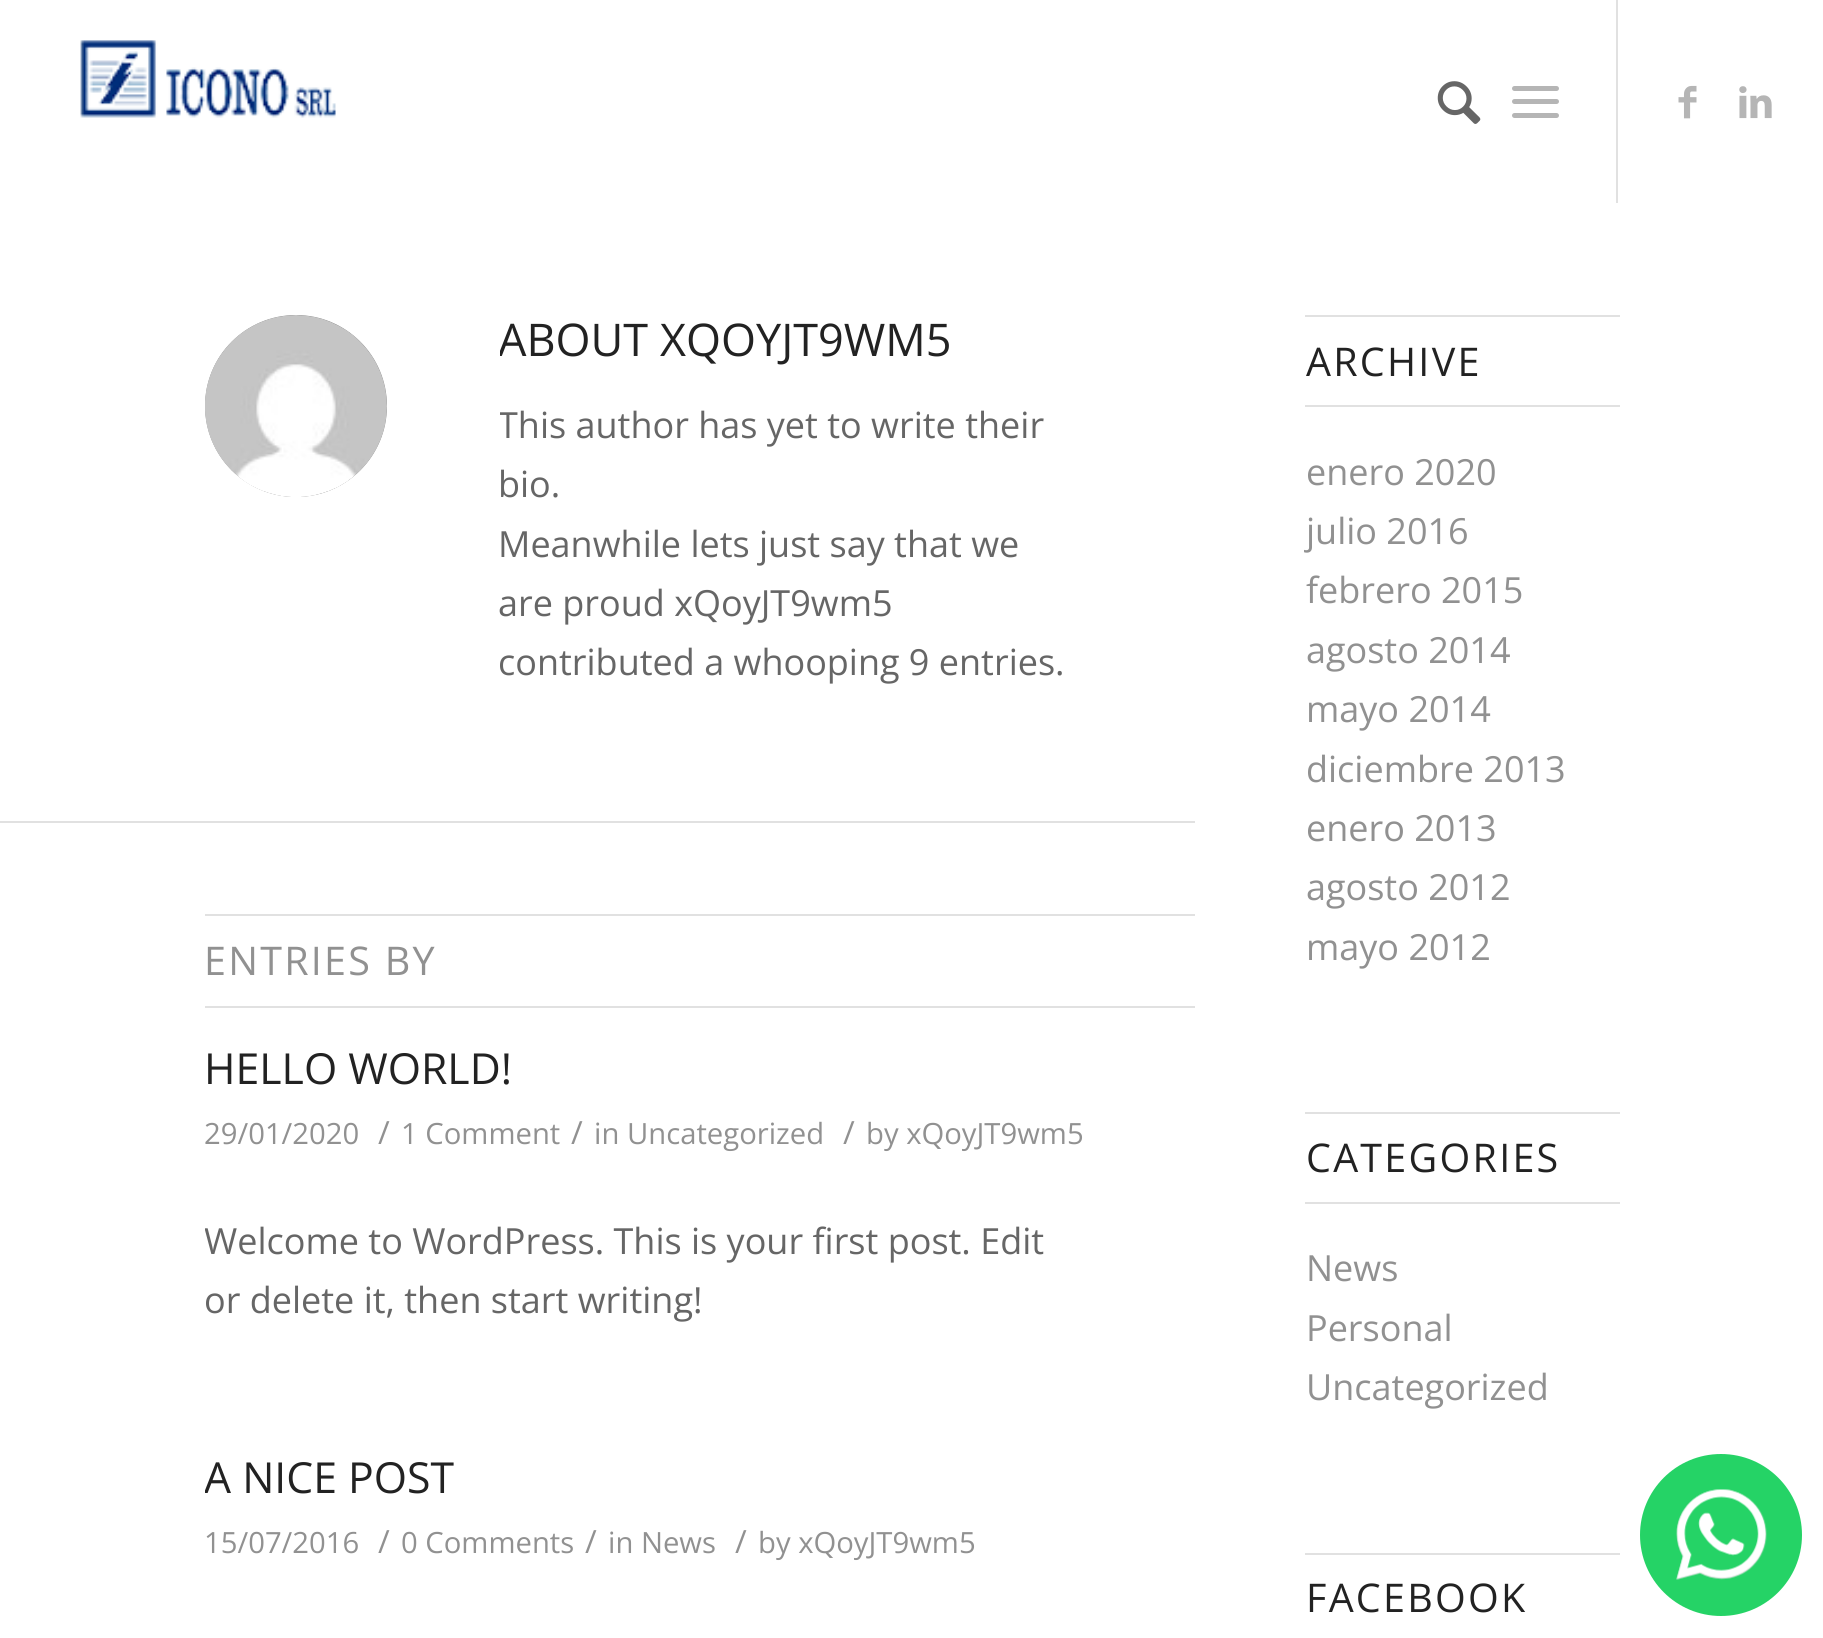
#include <cairo/cairo.h>
#include <math.h>
#include <stddef.h>

typedef struct { double x, y; const char *s; } line_t;
typedef struct { double x, y, w, h; unsigned color; } box_t;
static cairo_t *cr;

static void rgb(unsigned color)
{
	cairo_set_source_rgb(cr, (color >> 16) / 255.0, (color >> 8 & 255) / 255.0, (color & 255) / 255.0);
}

static void tracked(double x, double y, const char *s, double letter, double word)
{
	cairo_move_to(cr, x, y);
	while (*s) {
		char ch[5] = {0};
		int n = 0;
		do ch[n++] = *s++; while ((*s & 0xC0) == 0x80);
		cairo_show_text(cr, ch);
		cairo_rel_move_to(cr, letter + word * (*ch == ' '), 0);
	}
}

static void rrect(double x, double y, double w, double h, double r)
{
	cairo_new_sub_path(cr);
	cairo_arc(cr, x + w - r, y + h - r, r, 0, M_PI / 2);
	cairo_arc(cr, x + r, y + h - r, r, M_PI / 2, M_PI);
	cairo_arc(cr, x + r, y + r, r, M_PI, 1.5 * M_PI);
	cairo_arc(cr, x + w - r, y + r, r, 1.5 * M_PI, 2 * M_PI);
	cairo_close_path(cr);
}

static void image(const char *path, double x, double y, double w, double h)
{
	cairo_surface_t *image = cairo_image_surface_create_from_png(path);
	cairo_save(cr);
	cairo_set_source_surface(cr, image, x, y);
	cairo_rectangle(cr, x, y, w, h);
	cairo_fill(cr);
	cairo_restore(cr);
	cairo_surface_destroy(image);
}

int main(void) {
	cairo_surface_t *surface = cairo_image_surface_create(CAIRO_FORMAT_RGB24, 1823, 1638);
	cr = cairo_create(surface);
	cairo_font_options_t *options = cairo_font_options_create();
	cairo_font_options_set_hint_metrics(options, CAIRO_HINT_METRICS_OFF);
	cairo_font_options_set_hint_style(options, CAIRO_HINT_STYLE_NONE);
	cairo_set_font_options(cr, options);
	cairo_set_miter_limit(cr, 4);
	rgb(0xffffff);
	cairo_paint(cr);
	image("img/1.png", 80, 40, 256, 78);
	rgb(0xe1e1e1);
	cairo_rectangle(cr, 1616, 0, 2, 203);
	cairo_fill(cr);
	image("img/2.png", 1437, 81, 44, 43);
	rgb(0xb5b5b5);
	rrect(1512, 99, 47, 5, 2.5);
	cairo_fill(cr);
	rrect(1512, 86, 47, 5, 2.5);
	cairo_fill(cr);
	rrect(1512, 113, 47, 5, 2.5);
	cairo_fill(cr);
	image("img/3.png", 1678, 85, 19, 34);
	image("img/4.png", 1739, 86, 33, 33);
	rgb(0x919191);
	cairo_arc(cr, 296, 406, 91, 0, 2 * M_PI);
	cairo_fill(cr);
	image("img/5.png", 205, 315, 182, 182);
	{
		static const box_t items[] = {
			{0, 821, 1195, 2, 0xe1e1e1},
			{205, 914, 990, 2, 0xe1e1e1},
			{205, 1006, 990, 2, 0xe1e1e1},
			{1305, 315, 315, 2, 0xe1e1e1},
			{1305, 405, 315, 2, 0xe1e1e1},
			{1305, 1112, 315, 2, 0xe1e1e1},
			{1305, 1202, 315, 2, 0xe1e1e1},
			{1305, 1553, 315, 2, 0xe1e1e1},
		};
		for (size_t i = 0; i < sizeof items / sizeof *items; i++) {
			rgb(items[i].color);
			cairo_rectangle(cr, items[i].x, items[i].y, items[i].w, items[i].h);
			cairo_fill(cr);
		}
	}
	rgb(0x25d366);
	cairo_arc(cr, 1721, 1535, 81, 0, 2 * M_PI);
	cairo_fill(cr);
	image("img/6.png", 1676, 1489, 91, 91);
	cairo_save(cr);
	cairo_rectangle(cr, 500, 315, 582, 407);
	cairo_clip(cr);
	cairo_select_font_face(cr, "Open Sans", CAIRO_FONT_SLANT_NORMAL, CAIRO_FONT_WEIGHT_NORMAL);
	cairo_set_font_size(cr, 45);
	rgb(0x222222);
	cairo_move_to(cr, 498, 356);
	cairo_show_text(cr, "ABOUT");
	cairo_restore(cr);
	cairo_select_font_face(cr, "Open Sans", CAIRO_FONT_SLANT_NORMAL, CAIRO_FONT_WEIGHT_NORMAL);
	cairo_set_font_size(cr, 45);
	rgb(0x222222);
	cairo_move_to(cr, 660, 356);
	cairo_show_text(cr, "XQOYJT9WM5");
	cairo_save(cr);
	cairo_rectangle(cr, 500, 315, 582, 407);
	cairo_clip(cr);
	cairo_set_font_size(cr, 36);
	rgb(0x666666);
	cairo_move_to(cr, 498, 438);
	cairo_show_text(cr, "This author has yet to write their");
	cairo_restore(cr);
	cairo_set_font_size(cr, 36);
	rgb(0x666666);
	{
		static const line_t items[] = {
			{498, 497, "bio."},
			{498, 557, "Meanwhile lets just say that we"},
			{498, 616, "are proud xQoyJT9wm5"},
			{498, 675, "contributed a whooping 9 entries."},
		};
		for (size_t i = 0; i < sizeof items / sizeof *items; i++) {
			cairo_move_to(cr, items[i].x, items[i].y);
			cairo_show_text(cr, items[i].s);
		}
	}
	cairo_set_font_size(cr, 39.5);
	rgb(0x919191);
	tracked(204, 975, "ENTRIES BY", 2.25, 0);
	cairo_set_font_size(cr, 42.75);
	rgb(0x222222);
	cairo_move_to(cr, 204, 1084);
	cairo_show_text(cr, "HELLO WORLD!");
	cairo_set_font_size(cr, 29.25);
	rgb(0x919191);
	cairo_move_to(cr, 204, 1144);
	cairo_show_text(cr, "29/01/2020");
	cairo_set_font_size(cr, 32);
	cairo_move_to(cr, 378, 1144);
	cairo_show_text(cr, "/");
	cairo_set_font_size(cr, 29.25);
	cairo_move_to(cr, 401, 1144);
	cairo_show_text(cr, "1 Comment");
	cairo_set_font_size(cr, 32);
	cairo_move_to(cr, 571, 1144);
	cairo_show_text(cr, "/");
	cairo_set_font_size(cr, 29.25);
	cairo_move_to(cr, 594, 1144);
	cairo_show_text(cr, "in Uncategorized");
	cairo_set_font_size(cr, 32);
	cairo_move_to(cr, 843, 1144);
	cairo_show_text(cr, "/");
	cairo_set_font_size(cr, 29.25);
	cairo_move_to(cr, 866, 1144);
	cairo_show_text(cr, "by xQoyJT9wm5");
	cairo_save(cr);
	cairo_rectangle(cr, 205, 1042, 990, 409);
	cairo_clip(cr);
	cairo_set_font_size(cr, 36);
	rgb(0x666666);
	cairo_move_to(cr, 204, 1254);
	cairo_show_text(cr, "Welcome to WordPress. This is your first post. Edit");
	cairo_restore(cr);
	cairo_set_font_size(cr, 36);
	rgb(0x666666);
	cairo_move_to(cr, 204, 1313);
	cairo_show_text(cr, "or delete it, then start writing!");
	cairo_save(cr);
	cairo_rectangle(cr, 205, 1451, 990, 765);
	cairo_clip(cr);
	cairo_set_font_size(cr, 42.75);
	rgb(0x222222);
	cairo_move_to(cr, 204, 1493);
	cairo_show_text(cr, "A NICE POST");
	cairo_restore(cr);
	cairo_set_font_size(cr, 29.25);
	rgb(0x919191);
	cairo_move_to(cr, 204, 1553);
	cairo_show_text(cr, "15/07/2016");
	cairo_set_font_size(cr, 32);
	cairo_move_to(cr, 378, 1553);
	cairo_show_text(cr, "/");
	cairo_set_font_size(cr, 29.25);
	cairo_move_to(cr, 401, 1553);
	cairo_show_text(cr, "0 Comments");
	cairo_set_font_size(cr, 32);
	cairo_move_to(cr, 585, 1553);
	cairo_show_text(cr, "/");
	cairo_set_font_size(cr, 29.25);
	cairo_move_to(cr, 608, 1553);
	cairo_show_text(cr, "in News");
	cairo_set_font_size(cr, 32);
	cairo_move_to(cr, 735, 1553);
	cairo_show_text(cr, "/");
	cairo_set_font_size(cr, 29.25);
	cairo_move_to(cr, 758, 1553);
	cairo_show_text(cr, "by xQoyJT9wm5");
	cairo_set_font_size(cr, 39.5);
	rgb(0x222222);
	tracked(1306, 376, "ARCHIVE", 2.25, 0);
	cairo_set_font_size(cr, 36);
	rgb(0x919191);
	{
		static const line_t items[] = {
			{1306, 485, "enero 2020"},
			{1306, 544, "julio 2016"},
			{1306, 603, "febrero 2015"},
			{1306, 663, "agosto 2014"},
			{1306, 722, "mayo 2014"},
			{1306, 782, "diciembre 2013"},
			{1306, 841, "enero 2013"},
			{1306, 900, "agosto 2012"},
			{1306, 960, "mayo 2012"},
		};
		for (size_t i = 0; i < sizeof items / sizeof *items; i++) {
			cairo_move_to(cr, items[i].x, items[i].y);
			cairo_show_text(cr, items[i].s);
		}
	}
	cairo_set_font_size(cr, 39.5);
	rgb(0x222222);
	tracked(1306, 1172, "CATEGORIES", 2.25, 0);
	cairo_set_font_size(cr, 36);
	rgb(0x919191);
	{
		static const line_t items[] = {
			{1306, 1281, "News"},
			{1306, 1341, "Personal"},
			{1306, 1400, "Uncategorized"},
		};
		for (size_t i = 0; i < sizeof items / sizeof *items; i++) {
			cairo_move_to(cr, items[i].x, items[i].y);
			cairo_show_text(cr, items[i].s);
		}
	}
	cairo_set_font_size(cr, 39.5);
	rgb(0x222222);
	tracked(1306, 1612, "FACEBOOK", 2.25, 0);
	cairo_surface_write_to_png(surface, "page.png");
	cairo_font_options_destroy(options);
	cairo_destroy(cr);
	cairo_surface_destroy(surface);
	return 0;
}
